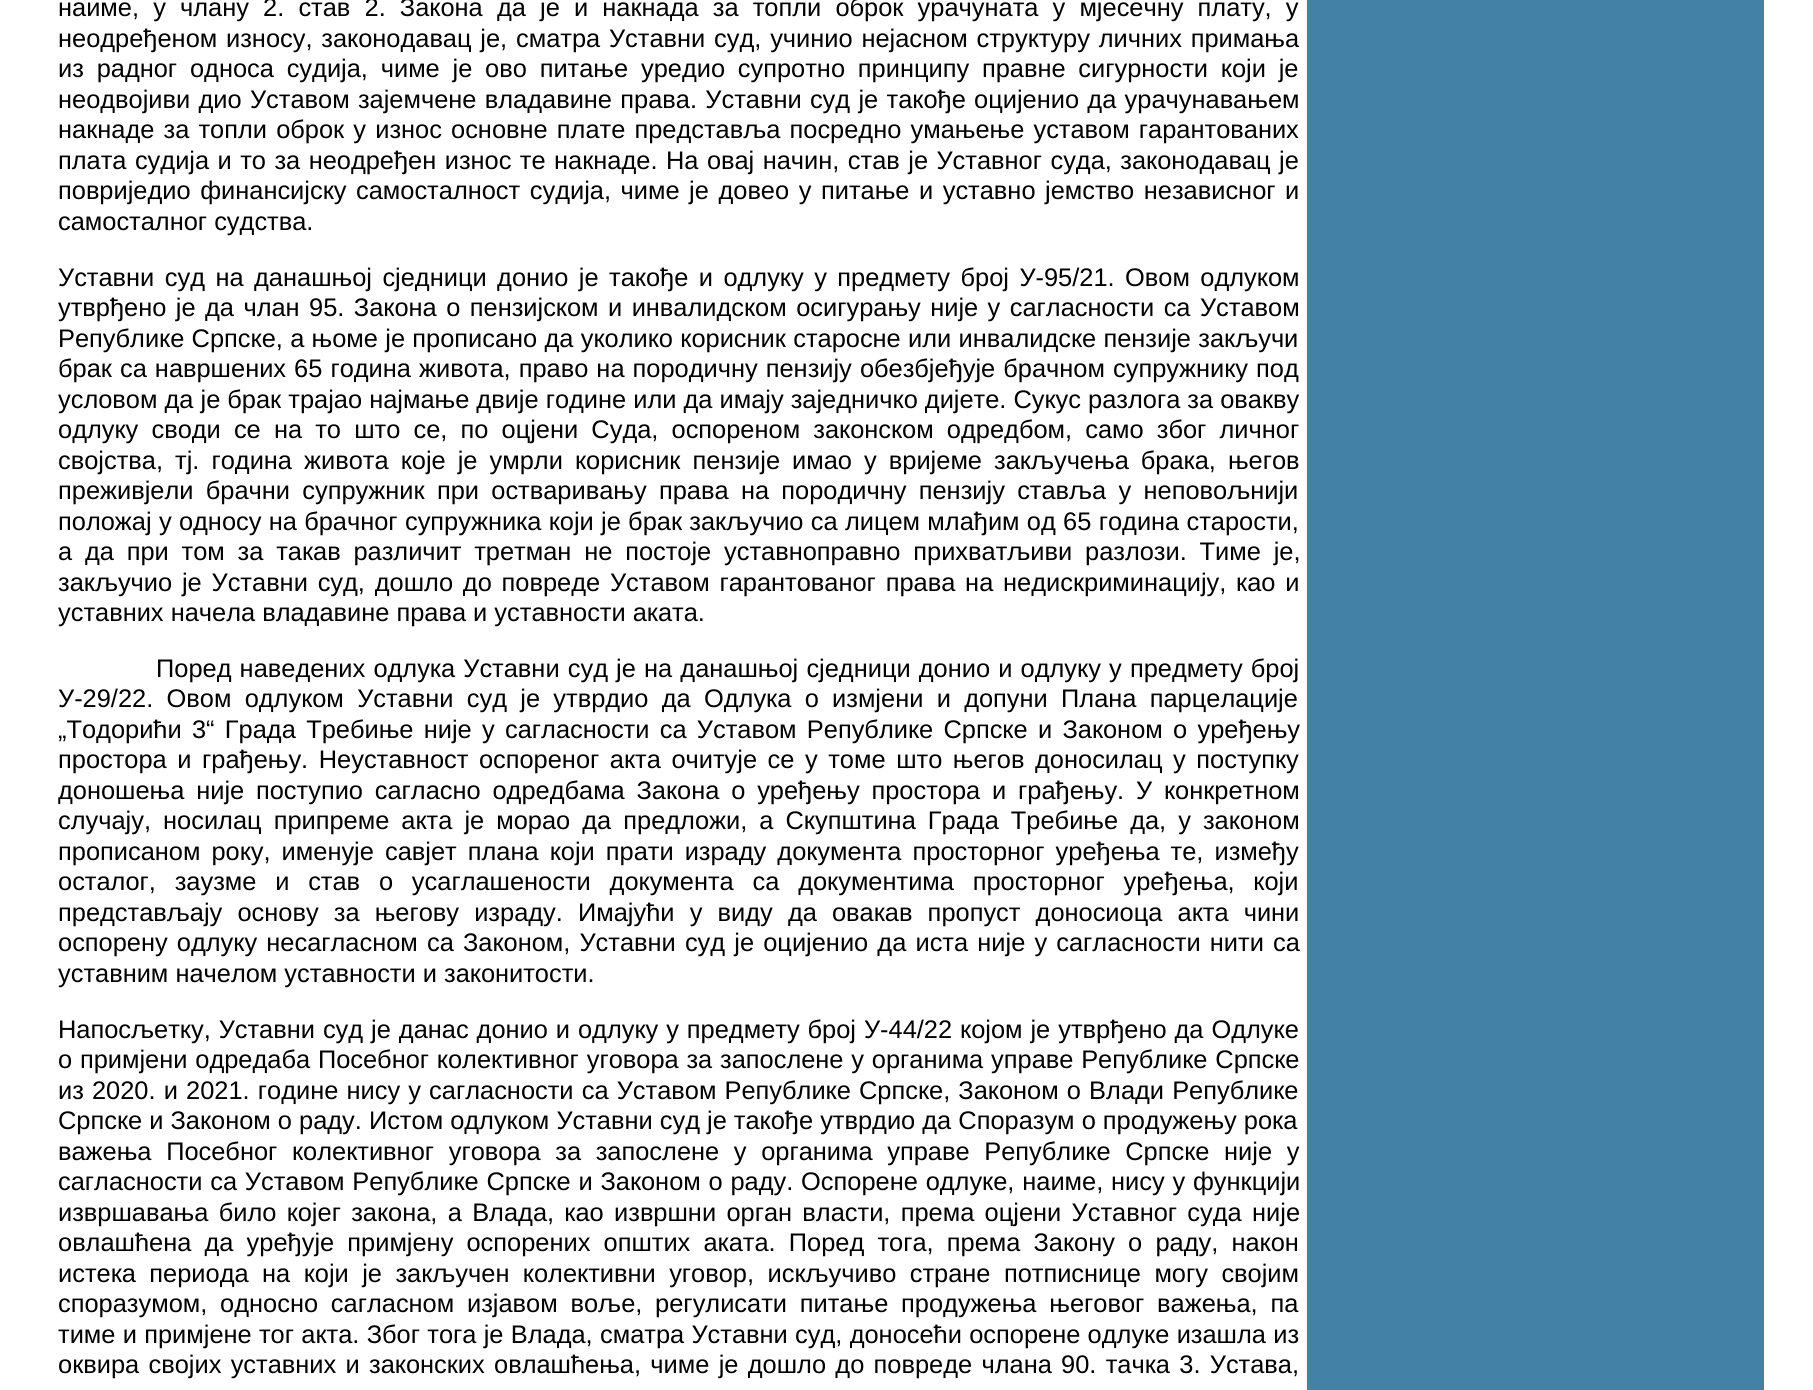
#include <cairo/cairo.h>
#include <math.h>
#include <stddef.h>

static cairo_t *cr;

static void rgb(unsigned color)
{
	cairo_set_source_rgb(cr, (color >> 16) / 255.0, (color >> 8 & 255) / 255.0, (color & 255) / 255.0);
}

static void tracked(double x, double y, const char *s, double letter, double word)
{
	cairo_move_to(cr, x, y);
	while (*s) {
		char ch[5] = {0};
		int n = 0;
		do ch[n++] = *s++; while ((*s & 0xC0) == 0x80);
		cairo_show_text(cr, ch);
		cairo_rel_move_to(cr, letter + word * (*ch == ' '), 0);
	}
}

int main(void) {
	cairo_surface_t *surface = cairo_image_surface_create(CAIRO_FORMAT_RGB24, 1813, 1390);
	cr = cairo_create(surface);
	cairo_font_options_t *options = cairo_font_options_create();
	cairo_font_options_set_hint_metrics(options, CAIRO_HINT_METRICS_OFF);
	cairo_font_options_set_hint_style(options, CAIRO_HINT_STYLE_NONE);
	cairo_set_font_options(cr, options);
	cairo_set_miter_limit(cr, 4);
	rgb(0xffffff);
	cairo_paint(cr);
	rgb(0x4381a7);
	cairo_rectangle(cr, 1307, 0, 457, 1390);
	cairo_fill(cr);
	cairo_select_font_face(cr, "Liberation Sans", CAIRO_FONT_SLANT_NORMAL, CAIRO_FONT_WEIGHT_NORMAL);
	cairo_set_font_size(cr, 25.4);
	rgb(0x000000);
	tracked(58, 16, "наиме, у члану 2. став 2. Закона да је и накнада за топли оброк урачуната у мјесечну плату, у", 0, 7.1);
	tracked(58, 47, "неодређеном износу, законодавац је, сматра Уставни суд, учинио нејасном структуру личних примања", 0, 1.75);
	tracked(58, 77, "из радног односа судија, чиме је ово питање уредио супротно принципу правне сигурности који је", 0, 5.75);
	tracked(58, 108, "неодвојиви дио Уставом зајемчене владавине права. Уставни суд је такође оцијенио да урачунавањем", 0, 1.25);
	tracked(58, 138, "накнаде за топли оброк у износ основне плате представља посредно умањење уставом гарантованих", 0, 2.1);
	tracked(58, 169, "плата судија и то за неодређен износ те накнаде. На овај начин, став је Уставног суда, законодавац је", 0, 1.4);
	tracked(58, 199, "повриједио финансијску самосталност судија, чиме је довео у питање и уставно јемство независног и", 0, 2.5);
	cairo_move_to(cr, 58, 230);
	cairo_show_text(cr, "самосталног судства.");
	tracked(58, 286, "Уставни суд на данашњој сједници донио је такође и одлуку у предмету број У-95/21. Овом одлуком", 0, 3.4);
	tracked(58, 316, "утврђено је да члан 95. Закона о пензијском и инвалидском осигурању није у сагласности са Уставом", 0, 2.4);
	tracked(58, 347, "Републике Српске, а њоме је прописано да уколико корисник старосне или инвалидске пензије закључи", 0, 0.25);
	tracked(58, 377, "брак са навршених 65 година живота, право на породичну пензију обезбјеђује брачном супружнику под", 0, 1);
	cairo_move_to(cr, 58, 408);
	cairo_show_text(cr, "условом да је брак трајао најмање двије године или да имају заједничко дијете. Сукус разлога за овакву");
	tracked(58, 438, "одлуку своди се на то што се, по оцјени Суда, оспореном законском одредбом, само због личног", 0, 6.1);
	tracked(58, 469, "својства, тј. година живота које је умрли корисник пензије имао у вријеме закључења брака, његов", 0, 5);
	tracked(58, 499, "преживјели брачни супружник при остваривању права на породичну пензију ставља у неповољнији", 0, 5.25);
	tracked(58, 530, "положај у односу на брачног супружника који је брак закључио са лицем млађим од 65 година старости,", 0, 0.25);
	tracked(58, 560, "а да при том за такав различит третман не постоје уставноправно прихватљиви разлози. Тиме је,", 0, 5.75);
	tracked(58, 591, "закључио је Уставни суд, дошло до повреде Уставом гарантованог права на недискриминацију, као и", 0, 2.75);
	cairo_move_to(cr, 58, 621);
	cairo_show_text(cr, "уставних начела владавине права и уставности аката.");
	tracked(156, 677, "Поред наведених одлука Уставни суд је на данашњој сједници донио и одлуку у предмету број", 0, 1.1);
	tracked(58, 707, "У-29/22. Овом одлуком Уставни суд је утврдио да Одлука о измјени и допуни Плана парцелације", 0, 6.25);
	tracked(58, 738, "„Тодорићи 3“ Града Требиње није у сагласности са Уставом Републике Српске и Законом о уређењу", 0, 3.25);
	tracked(58, 768, "простора и грађењу. Неуставност оспореног акта очитује се у томе што његов доносилац у поступку", 0, 3.5);
	tracked(58, 799, "доношења није поступио сагласно одредбама Закона о уређењу простора и грађењу. У конкретном", 0, 4.75);
	tracked(58, 829, "случају, носилац припреме акта је морао да предложи, а Скупштина Града Требиње да, у законом", 0, 5);
	tracked(58, 860, "прописаном року, именује савјет плана који прати израду документа просторног уређења те, између", 0, 4);
	tracked(58, 890, "осталог, заузме и став о усаглашености документа са документима просторног уређења, који", 0, 11.75);
	tracked(58, 921, "представљају основу за његову израду. Имајући у виду да овакав пропуст доносиоца акта чини", 0, 8.1);
	tracked(58, 951, "оспорену одлуку несагласном са Законом, Уставни суд је оцијенио да иста није у сагласности нити са", 0, 2.1);
	cairo_move_to(cr, 58, 982);
	cairo_show_text(cr, "уставним начелом уставности и законитости.");
	tracked(58, 1038, "Напосљетку, Уставни суд је данас донио и одлуку у предмету број У-44/22 којом је утврђено да Одлуке", 0, 0.9);
	tracked(58, 1068, "о примјени одредаба Посебног колективног уговора за запослене у органима управе Републике Српске", 0, 0.75);
	tracked(58, 1099, "из 2020. и 2021. године нису у сагласности са Уставом Републике Српске, Законом о Влади Републике", 0, 1.1);
	cairo_move_to(cr, 58, 1129);
	cairo_show_text(cr, "Српске и Законом о раду. Истом одлуком Уставни суд је такође утврдио да Споразум о продужењу рока");
	tracked(58, 1160, "важења Посебног колективног уговора за запослене у органима управе Републике Српске није у", 0, 7.6);
	tracked(58, 1190, "сагласности са Уставом Републике Српске и Законом о раду. Оспорене одлуке, наиме, нису у функцији", 0, 0.75);
	tracked(58, 1221, "извршавања било којег закона, а Влада, као извршни орган власти, према оцјени Уставног суда није", 0, 3.25);
	tracked(58, 1251, "овлашћена да уређује примјену оспорених општих аката. Поред тога, према Закону о раду, након", 0, 6.1);
	tracked(58, 1282, "истека периода на који је закључен колективни уговор, искључиво стране потписнице могу својим", 0, 6.4);
	tracked(58, 1312, "споразумом, односно сагласном изјавом воље, регулисати питање продужења његовог важења, па", 0, 5.75);
	tracked(58, 1343, "тиме и примјене тог акта. Због тога је Влада, сматра Уставни суд, доносећи оспорене одлуке изашла из", 0, 0.25);
	tracked(58, 1373, "оквира својих уставних и законских овлашћења, чиме је дошло до повреде члана 90. тачка 3. Устава,", 0, 2.25);
	cairo_surface_write_to_png(surface, "page.png");
	cairo_font_options_destroy(options);
	cairo_destroy(cr);
	cairo_surface_destroy(surface);
	return 0;
}
